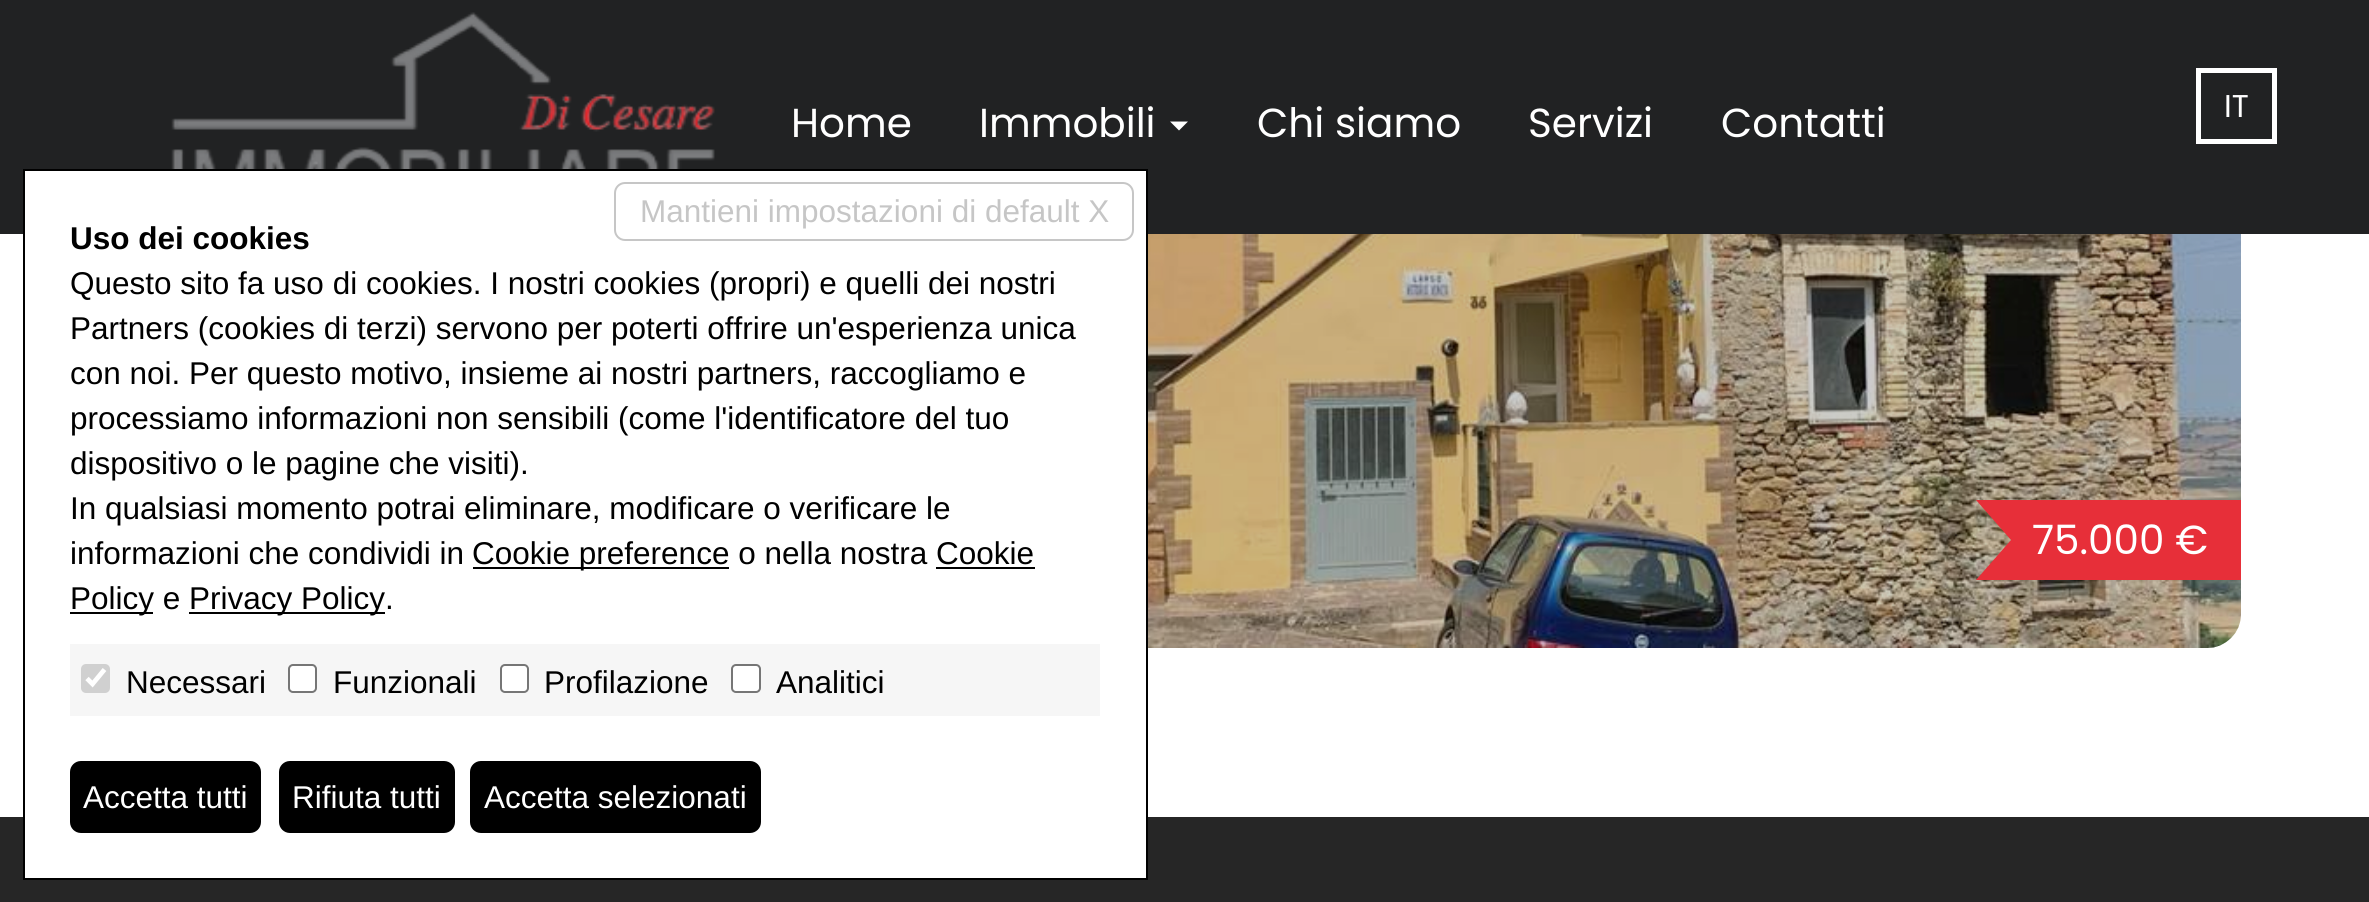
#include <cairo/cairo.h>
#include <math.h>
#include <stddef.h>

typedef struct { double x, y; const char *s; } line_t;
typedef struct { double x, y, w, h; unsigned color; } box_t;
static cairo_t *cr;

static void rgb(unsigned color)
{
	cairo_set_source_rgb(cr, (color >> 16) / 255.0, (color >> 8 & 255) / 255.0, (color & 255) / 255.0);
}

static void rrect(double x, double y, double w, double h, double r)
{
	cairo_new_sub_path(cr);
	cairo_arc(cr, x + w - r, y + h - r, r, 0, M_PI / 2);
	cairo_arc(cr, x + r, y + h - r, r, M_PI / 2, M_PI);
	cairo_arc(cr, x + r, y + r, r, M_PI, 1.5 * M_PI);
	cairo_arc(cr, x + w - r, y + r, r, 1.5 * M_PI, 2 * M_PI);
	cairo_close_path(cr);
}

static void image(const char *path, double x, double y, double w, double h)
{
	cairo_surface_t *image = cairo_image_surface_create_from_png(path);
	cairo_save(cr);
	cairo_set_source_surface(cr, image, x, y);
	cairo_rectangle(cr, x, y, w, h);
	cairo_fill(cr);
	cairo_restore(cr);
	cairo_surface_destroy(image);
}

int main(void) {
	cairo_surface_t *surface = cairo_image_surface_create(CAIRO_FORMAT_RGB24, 2369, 902);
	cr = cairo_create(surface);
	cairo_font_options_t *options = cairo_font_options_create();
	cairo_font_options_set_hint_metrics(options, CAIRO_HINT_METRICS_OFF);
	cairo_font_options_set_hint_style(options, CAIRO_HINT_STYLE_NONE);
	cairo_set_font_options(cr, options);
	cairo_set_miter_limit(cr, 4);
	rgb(0xffffff);
	cairo_paint(cr);
	image("img/2.png", 1148, 234, 1093, 414);
	cairo_set_source_rgba(cr, 0, 0, 0, 0.2);
	rrect(1037, -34, 1204, 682, 34);
	cairo_fill(cr);
	rgb(0x212223);
	cairo_rectangle(cr, 0, 0, 2369, 234);
	cairo_fill(cr);
	image("img/1.png", 171, 12, 544, 157);
	rgb(0xffffff);
	cairo_new_path(cr);
	cairo_move_to(cr, 1170, 121.5);
	cairo_line_to(cr, 1188, 121.5);
	cairo_line_to(cr, 1179, 130.5);
	cairo_close_path(cr);
	cairo_fill(cr);
	cairo_rectangle(cr, 2198.5, 70.5, 76, 71);
	cairo_set_line_width(cr, 5);
	cairo_stroke(cr);
	rgb(0x262626);
	cairo_rectangle(cr, 0, 817, 2369, 85);
	cairo_fill(cr);
	rgb(0xffffff);
	cairo_rectangle(cr, 24, 170, 1123, 709);
	cairo_fill_preserve(cr);
	rgb(0x000000);
	cairo_set_line_width(cr, 2);
	cairo_stroke(cr);
	rrect(615, 183, 518, 57, 10);
	rgb(0xc6c6c6);
	cairo_stroke(cr);
	{
		static const box_t items[] = {
			{473, 567, 256, 2, 0x000000},
			{936, 567, 99, 2, 0x000000},
			{70, 612, 83, 2, 0x000000},
			{189, 612, 196, 2, 0x000000},
			{70, 644, 1030, 72, 0xf6f6f6},
		};
		for (size_t i = 0; i < sizeof items / sizeof *items; i++) {
			rgb(items[i].color);
			cairo_rectangle(cr, items[i].x, items[i].y, items[i].w, items[i].h);
			cairo_fill(cr);
		}
	}
	rgb(0xd0d0d0);
	rrect(81, 664, 29, 29, 5);
	cairo_fill(cr);
	cairo_new_path(cr);
	cairo_move_to(cr, 87, 678.5);
	cairo_line_to(cr, 92.5, 684);
	cairo_line_to(cr, 104.5, 669.5);
	rgb(0xffffff);
	cairo_set_line_width(cr, 4.7);
	cairo_stroke(cr);
	rrect(289, 665, 27, 27, 4);
	cairo_fill_preserve(cr);
	rgb(0x767676);
	cairo_set_line_width(cr, 2);
	cairo_stroke(cr);
	rgb(0xffffff);
	rrect(501, 665, 27, 27, 4);
	cairo_fill_preserve(cr);
	rgb(0x767676);
	cairo_stroke(cr);
	rgb(0xffffff);
	rrect(732, 665, 28, 27, 4);
	cairo_fill_preserve(cr);
	rgb(0x767676);
	cairo_stroke(cr);
	rgb(0x000000);
	rrect(71, 762, 189, 70, 10);
	cairo_fill_preserve(cr);
	cairo_stroke(cr);
	rrect(280, 762, 174, 70, 10);
	cairo_fill_preserve(cr);
	cairo_stroke(cr);
	rrect(471, 762, 289, 70, 10);
	cairo_fill_preserve(cr);
	cairo_stroke(cr);
	rgb(0xe72f39);
	cairo_new_path(cr);
	cairo_move_to(cr, 2241, 500);
	cairo_line_to(cr, 1976, 500);
	cairo_line_to(cr, 2011, 540);
	cairo_line_to(cr, 1976, 580);
	cairo_line_to(cr, 2241, 580);
	cairo_close_path(cr);
	cairo_fill(cr);
	cairo_select_font_face(cr, "Poppins", CAIRO_FONT_SLANT_NORMAL, CAIRO_FONT_WEIGHT_NORMAL);
	cairo_set_font_size(cr, 40.5);
	rgb(0xffffff);
	{
		static const line_t items[] = {
			{791, 137, "Home"},
			{979, 137, "Immobili"},
			{1257, 137, "Chi siamo"},
			{1528, 137, "Servizi"},
			{1721, 137, "Contatti"},
		};
		for (size_t i = 0; i < sizeof items / sizeof *items; i++) {
			cairo_move_to(cr, items[i].x, items[i].y);
			cairo_show_text(cr, items[i].s);
		}
	}
	cairo_set_font_size(cr, 31.5);
	cairo_move_to(cr, 2224, 117);
	cairo_show_text(cr, "IT");
	cairo_select_font_face(cr, "Liberation Sans", CAIRO_FONT_SLANT_NORMAL, CAIRO_FONT_WEIGHT_NORMAL);
	rgb(0xc6c6c6);
	cairo_move_to(cr, 640, 222);
	cairo_show_text(cr, "Mantieni impostazioni di default X");
	cairo_select_font_face(cr, "Liberation Sans", CAIRO_FONT_SLANT_NORMAL, CAIRO_FONT_WEIGHT_BOLD);
	rgb(0x000000);
	cairo_move_to(cr, 70, 249);
	cairo_show_text(cr, "Uso dei cookies");
	cairo_select_font_face(cr, "Liberation Sans", CAIRO_FONT_SLANT_NORMAL, CAIRO_FONT_WEIGHT_NORMAL);
	{
		static const line_t items[] = {
			{70, 294, "Questo sito fa uso di cookies. I nostri cookies (propri) e quelli dei nostri"},
			{70, 339, "Partners (cookies di terzi) servono per poterti offrire un'esperienza unica"},
			{70, 384, "con noi. Per questo motivo, insieme ai nostri partners, raccogliamo e"},
			{70, 429, "processiamo informazioni non sensibili (come l'identificatore del tuo"},
			{70, 474, "dispositivo o le pagine che visiti)."},
			{70, 519, "In qualsiasi momento potrai eliminare, modificare o verificare le"},
			{70, 564, "informazioni che condividi in"},
			{472, 564, "Cookie preference o nella nostra Cookie"},
			{70, 609, "Policy e"},
			{189, 609, "Privacy Policy."},
			{126, 693, "Necessari"},
			{333, 693, "Funzionali"},
			{544, 693, "Profilazione"},
			{776, 693, "Analitici"},
		};
		for (size_t i = 0; i < sizeof items / sizeof *items; i++) {
			cairo_move_to(cr, items[i].x, items[i].y);
			cairo_show_text(cr, items[i].s);
		}
	}
	rgb(0xffffff);
	{
		static const line_t items[] = {
			{83, 808, "Accetta tutti"},
			{292, 808, "Rifiuta tutti"},
			{484, 808, "Accetta selezionati"},
		};
		for (size_t i = 0; i < sizeof items / sizeof *items; i++) {
			cairo_move_to(cr, items[i].x, items[i].y);
			cairo_show_text(cr, items[i].s);
		}
	}
	cairo_select_font_face(cr, "Poppins", CAIRO_FONT_SLANT_NORMAL, CAIRO_FONT_WEIGHT_NORMAL);
	cairo_set_font_size(cr, 40.5);
	cairo_move_to(cr, 2032, 554);
	cairo_show_text(cr, "75.000 €");
	cairo_surface_write_to_png(surface, "page.png");
	cairo_font_options_destroy(options);
	cairo_destroy(cr);
	cairo_surface_destroy(surface);
	return 0;
}
